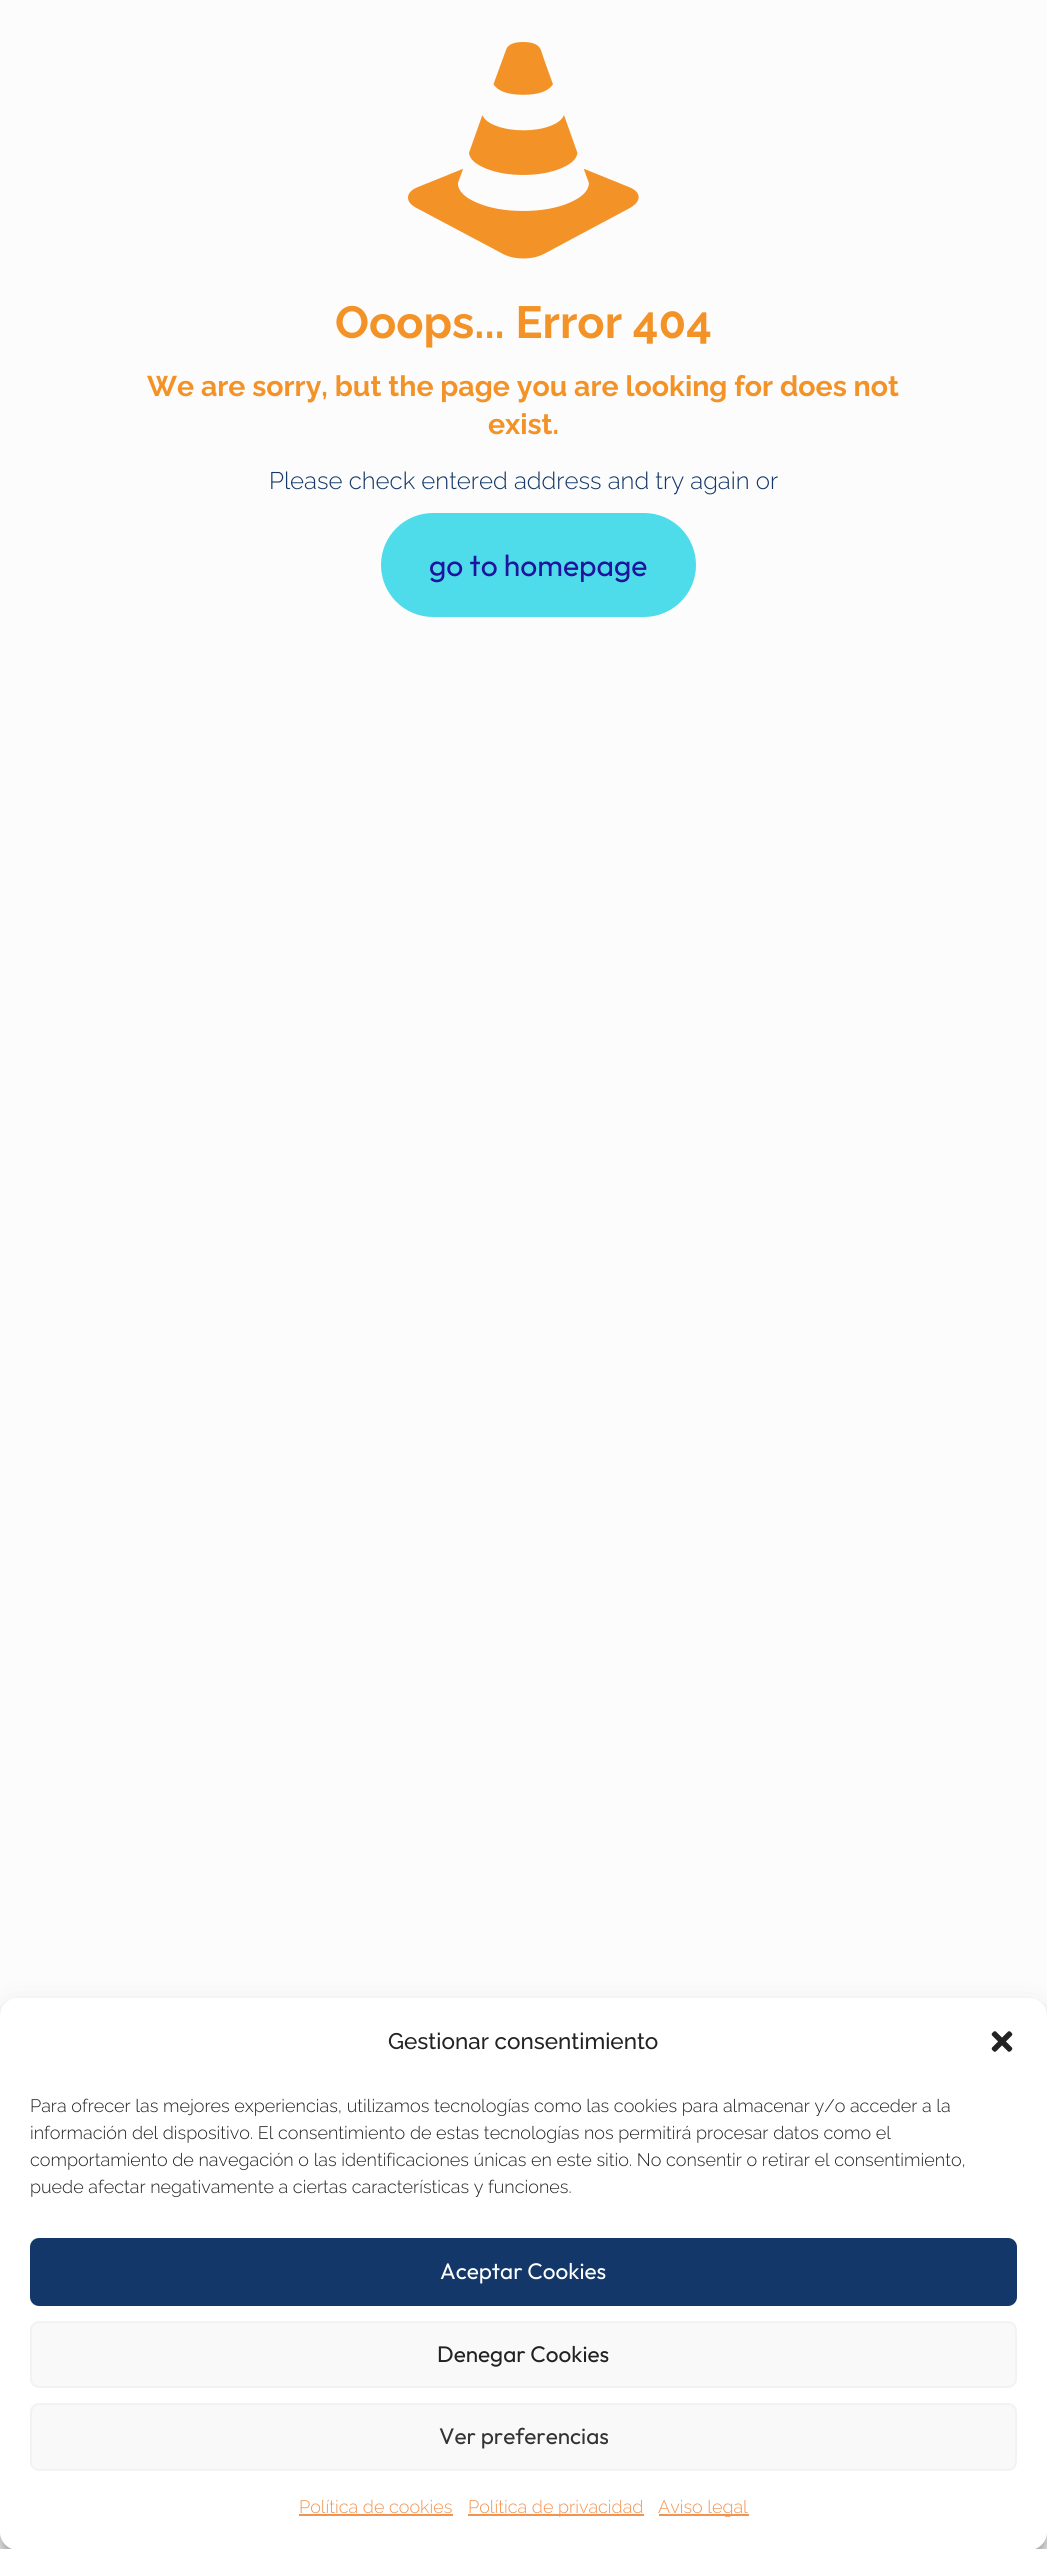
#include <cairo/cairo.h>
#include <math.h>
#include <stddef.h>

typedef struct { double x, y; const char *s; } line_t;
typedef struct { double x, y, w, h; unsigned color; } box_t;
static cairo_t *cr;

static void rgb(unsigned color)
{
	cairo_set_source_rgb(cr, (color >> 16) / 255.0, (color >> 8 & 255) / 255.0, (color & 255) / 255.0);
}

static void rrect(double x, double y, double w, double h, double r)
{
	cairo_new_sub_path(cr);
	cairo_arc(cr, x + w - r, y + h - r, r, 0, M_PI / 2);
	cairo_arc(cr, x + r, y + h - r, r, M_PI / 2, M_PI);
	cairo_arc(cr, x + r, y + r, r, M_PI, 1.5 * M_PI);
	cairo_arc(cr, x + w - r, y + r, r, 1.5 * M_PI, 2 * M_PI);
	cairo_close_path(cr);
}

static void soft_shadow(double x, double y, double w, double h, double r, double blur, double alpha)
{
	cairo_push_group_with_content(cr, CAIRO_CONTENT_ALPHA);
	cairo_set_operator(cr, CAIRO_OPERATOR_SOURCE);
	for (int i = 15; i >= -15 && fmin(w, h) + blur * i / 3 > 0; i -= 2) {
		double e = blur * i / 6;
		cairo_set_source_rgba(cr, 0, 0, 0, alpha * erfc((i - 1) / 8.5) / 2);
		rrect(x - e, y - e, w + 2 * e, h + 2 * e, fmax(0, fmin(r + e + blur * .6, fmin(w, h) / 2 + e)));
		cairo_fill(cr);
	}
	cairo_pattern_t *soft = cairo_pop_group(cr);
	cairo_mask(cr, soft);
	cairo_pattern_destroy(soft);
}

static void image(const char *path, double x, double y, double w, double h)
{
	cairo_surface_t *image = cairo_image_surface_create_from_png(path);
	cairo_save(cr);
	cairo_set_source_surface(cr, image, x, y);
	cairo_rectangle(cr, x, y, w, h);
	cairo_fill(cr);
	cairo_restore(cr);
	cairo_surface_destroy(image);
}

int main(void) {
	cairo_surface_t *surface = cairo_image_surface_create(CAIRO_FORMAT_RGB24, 1047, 2549);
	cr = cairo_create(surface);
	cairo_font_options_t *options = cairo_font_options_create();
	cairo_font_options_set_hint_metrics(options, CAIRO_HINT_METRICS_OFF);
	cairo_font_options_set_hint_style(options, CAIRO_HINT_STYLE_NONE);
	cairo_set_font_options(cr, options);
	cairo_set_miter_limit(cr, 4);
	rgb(0xfcfcfc);
	cairo_paint(cr);
	image("img/1.png", 408, 42, 231, 217);
	rgb(0x4edceb);
	rrect(382.5, 514.5, 312, 101, 50.5);
	cairo_fill_preserve(cr);
	cairo_set_line_width(cr, 3);
	cairo_stroke(cr);
	rgb(0x000000);
	soft_shadow(0, 2007, 1047, 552, 18, 4.5, 0.23);
	soft_shadow(0, 2013, 1047, 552, 18, 15, 0.19);
	rgb(0xffffff);
	rrect(0, 1998, 1047, 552, 18);
	cairo_fill(cr);
	image("img/2.png", 991, 2031, 22, 21);
	rgb(0x123768);
	rrect(31, 2239, 985, 66, 8);
	cairo_fill_preserve(cr);
	cairo_set_line_width(cr, 2);
	cairo_stroke(cr);
	rgb(0xf9f9f9);
	rrect(31, 2322, 985, 65, 8);
	cairo_fill_preserve(cr);
	rgb(0xf2f2f2);
	cairo_stroke(cr);
	rgb(0xf9f9f9);
	rrect(31, 2404, 985, 66, 8);
	cairo_fill_preserve(cr);
	rgb(0xf2f2f2);
	cairo_stroke(cr);
	{
		static const box_t items[] = {
			{299, 2514, 154, 2, 0xf39350},
			{468, 2514, 176, 2, 0xf39350},
			{659, 2514, 90, 2, 0xf39350},
		};
		for (size_t i = 0; i < sizeof items / sizeof *items; i++) {
			rgb(items[i].color);
			cairo_rectangle(cr, items[i].x, items[i].y, items[i].w, items[i].h);
			cairo_fill(cr);
		}
	}
	cairo_select_font_face(cr, "Raleway", CAIRO_FONT_SLANT_NORMAL, CAIRO_FONT_WEIGHT_BOLD);
	cairo_set_font_size(cr, 45);
	rgb(0xf39327);
	cairo_move_to(cr, 335, 338);
	cairo_show_text(cr, "Ooops... Error 404");
	cairo_set_font_size(cr, 28.5);
	cairo_move_to(cr, 147, 396);
	cairo_show_text(cr, "We are sorry, but the page you are looking for does not");
	cairo_move_to(cr, 488, 434);
	cairo_show_text(cr, "exist.");
	cairo_select_font_face(cr, "Raleway Light", CAIRO_FONT_SLANT_NORMAL, CAIRO_FONT_WEIGHT_NORMAL);
	cairo_set_font_size(cr, 24);
	rgb(0x123768);
	cairo_move_to(cr, 269, 489);
	cairo_show_text(cr, "Please check entered address and try again or");
	cairo_select_font_face(cr, "Outfit Thin", CAIRO_FONT_SLANT_NORMAL, CAIRO_FONT_WEIGHT_NORMAL);
	cairo_set_font_size(cr, 30);
	rgb(0x1e149d);
	cairo_move_to(cr, 429, 576);
	cairo_show_text(cr, "go to homepage");
	cairo_select_font_face(cr, "Raleway Medium", CAIRO_FONT_SLANT_NORMAL, CAIRO_FONT_WEIGHT_NORMAL);
	cairo_set_font_size(cr, 22.5);
	rgb(0x222222);
	cairo_move_to(cr, 388, 2049);
	cairo_show_text(cr, "Gestionar consentimiento");
	cairo_select_font_face(cr, "Raleway Light", CAIRO_FONT_SLANT_NORMAL, CAIRO_FONT_WEIGHT_NORMAL);
	cairo_set_font_size(cr, 18);
	{
		static const line_t items[] = {
			{30, 2112, "Para ofrecer las mejores experiencias, utilizamos tecnologías como las cookies para almacenar y/o acceder a la"},
			{30, 2139, "información del dispositivo. El consentimiento de estas tecnologías nos permitirá procesar datos como el"},
			{30, 2166, "comportamiento de navegación o las identificaciones únicas en este sitio. No consentir o retirar el consentimiento,"},
			{30, 2193, "puede afectar negativamente a ciertas características y funciones."},
		};
		for (size_t i = 0; i < sizeof items / sizeof *items; i++) {
			cairo_move_to(cr, items[i].x, items[i].y);
			cairo_show_text(cr, items[i].s);
		}
	}
	cairo_select_font_face(cr, "Outfit Thin", CAIRO_FONT_SLANT_NORMAL, CAIRO_FONT_WEIGHT_NORMAL);
	cairo_set_font_size(cr, 22.5);
	rgb(0xffffff);
	cairo_move_to(cr, 440, 2279);
	cairo_show_text(cr, "Aceptar Cookies");
	rgb(0x222222);
	cairo_move_to(cr, 437, 2362);
	cairo_show_text(cr, "Denegar Cookies");
	rgb(0x333333);
	cairo_move_to(cr, 439, 2444);
	cairo_show_text(cr, "Ver preferencias");
	cairo_select_font_face(cr, "Raleway Light", CAIRO_FONT_SLANT_NORMAL, CAIRO_FONT_WEIGHT_NORMAL);
	cairo_set_font_size(cr, 18);
	rgb(0xf39350);
	{
		static const line_t items[] = {
			{299, 2513, "Política de cookies"},
			{468, 2513, "Política de privacidad"},
			{658, 2513, "Aviso legal"},
		};
		for (size_t i = 0; i < sizeof items / sizeof *items; i++) {
			cairo_move_to(cr, items[i].x, items[i].y);
			cairo_show_text(cr, items[i].s);
		}
	}
	cairo_surface_write_to_png(surface, "page.png");
	cairo_font_options_destroy(options);
	cairo_destroy(cr);
	cairo_surface_destroy(surface);
	return 0;
}
